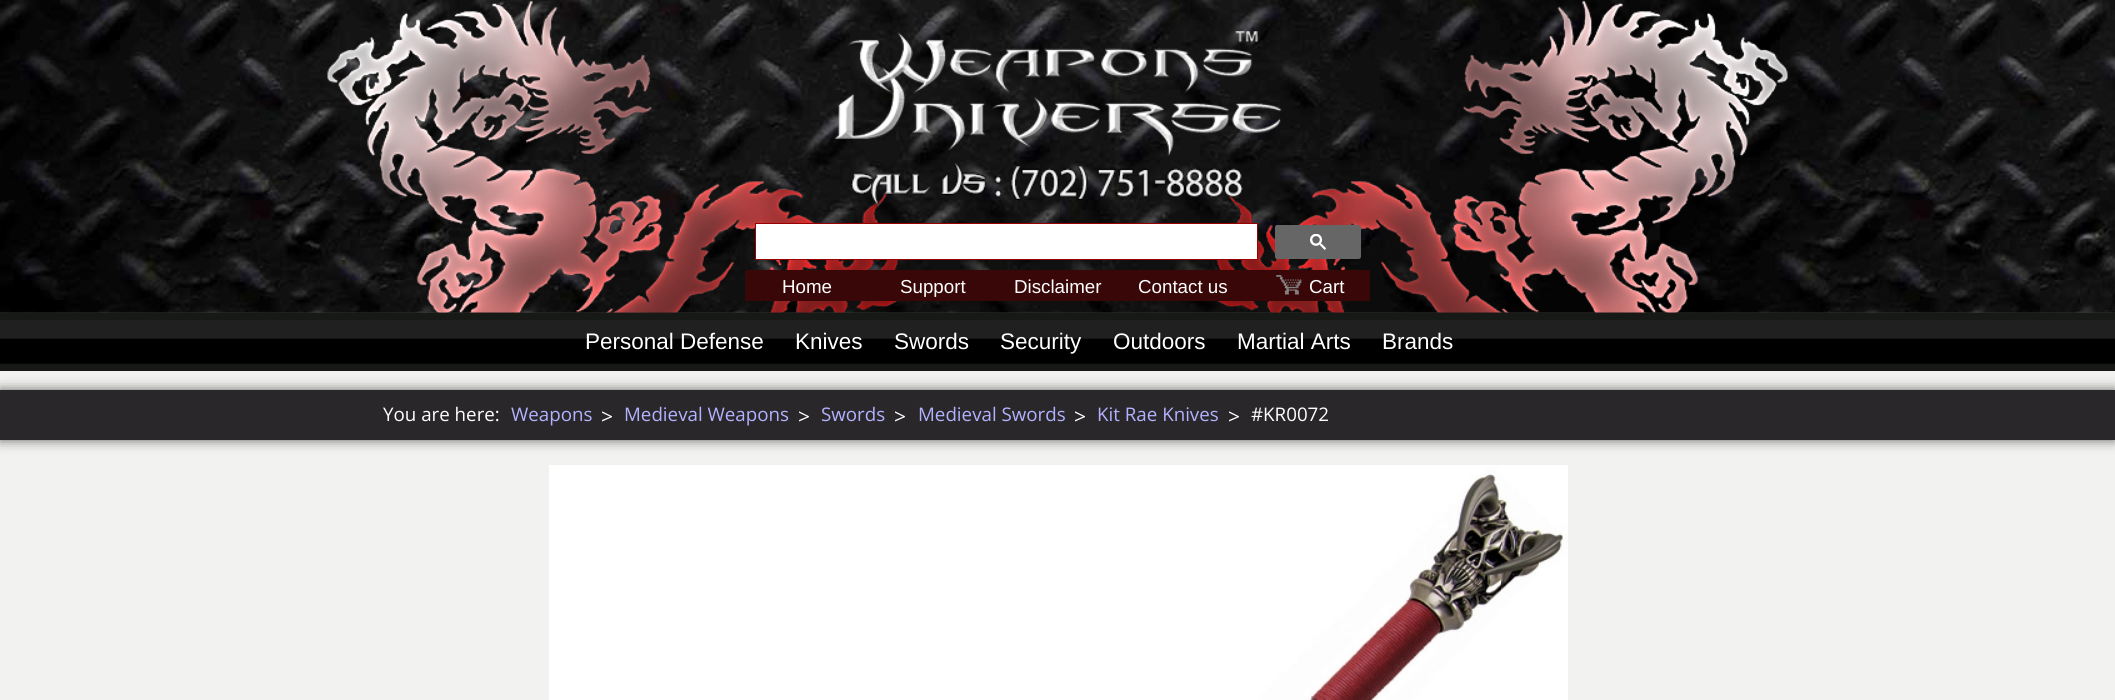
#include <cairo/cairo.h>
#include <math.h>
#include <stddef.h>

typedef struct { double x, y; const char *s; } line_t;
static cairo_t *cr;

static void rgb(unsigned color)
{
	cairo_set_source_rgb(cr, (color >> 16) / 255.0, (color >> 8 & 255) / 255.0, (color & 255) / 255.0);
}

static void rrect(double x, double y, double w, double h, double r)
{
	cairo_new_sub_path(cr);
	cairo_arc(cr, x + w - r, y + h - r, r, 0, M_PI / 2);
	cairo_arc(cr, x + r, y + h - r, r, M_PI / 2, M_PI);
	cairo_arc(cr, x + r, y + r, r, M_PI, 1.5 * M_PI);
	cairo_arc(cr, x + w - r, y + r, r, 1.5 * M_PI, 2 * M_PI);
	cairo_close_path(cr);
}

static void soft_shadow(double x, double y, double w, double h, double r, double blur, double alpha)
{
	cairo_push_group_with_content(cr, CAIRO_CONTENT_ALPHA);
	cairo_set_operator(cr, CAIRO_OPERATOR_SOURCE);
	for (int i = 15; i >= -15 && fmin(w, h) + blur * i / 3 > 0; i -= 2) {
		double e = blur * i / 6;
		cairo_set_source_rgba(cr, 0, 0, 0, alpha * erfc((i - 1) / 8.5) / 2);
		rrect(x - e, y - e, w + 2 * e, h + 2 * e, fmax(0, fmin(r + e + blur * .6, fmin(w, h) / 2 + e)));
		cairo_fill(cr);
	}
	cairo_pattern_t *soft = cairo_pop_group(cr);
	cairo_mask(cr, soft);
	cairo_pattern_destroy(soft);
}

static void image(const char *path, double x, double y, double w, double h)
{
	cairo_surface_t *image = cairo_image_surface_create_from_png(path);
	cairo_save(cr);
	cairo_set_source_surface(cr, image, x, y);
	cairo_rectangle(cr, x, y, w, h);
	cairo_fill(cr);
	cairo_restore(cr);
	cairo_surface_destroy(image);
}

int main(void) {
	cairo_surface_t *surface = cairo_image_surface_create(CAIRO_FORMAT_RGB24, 2115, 700);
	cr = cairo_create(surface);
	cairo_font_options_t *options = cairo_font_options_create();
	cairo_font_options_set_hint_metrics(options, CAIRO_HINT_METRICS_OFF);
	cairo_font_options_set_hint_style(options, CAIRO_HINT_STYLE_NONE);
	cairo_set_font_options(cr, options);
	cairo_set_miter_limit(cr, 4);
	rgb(0xf2f2f0);
	cairo_paint(cr);
	rgb(0x333333);
	cairo_rectangle(cr, 0, 312, 2115, 1);
	cairo_fill(cr);
	image("img/1.png", 0, 0, 2115, 313);
	image("img/2.png", 327, 0, 572, 313);
	image("img/6.png", 1216, 0, 572, 313);
	image("img/3.png", 834, 31, 448, 175);
	rgb(0xffffff);
	cairo_rectangle(cr, 755.5, 223.5, 502, 36);
	cairo_fill_preserve(cr);
	rgb(0x990000);
	cairo_set_line_width(cr, 1);
	cairo_stroke(cr);
	rgb(0x666666);
	rrect(1275.5, 225.5, 85, 33, 2);
	cairo_fill_preserve(cr);
	cairo_stroke(cr);
	image("img/4.png", 1310, 234, 16, 16);
	rgb(0x390707);
	cairo_rectangle(cr, 745, 270, 625, 31);
	cairo_fill(cr);
	image("img/5.png", 1276, 275, 26, 20);
	rgb(0x171917);
	cairo_rectangle(cr, 0, 313, 2115, 58);
	cairo_fill(cr);
	image("img/7.png", 0, 320, 2115, 44);
	rgb(0x000000);
	soft_shadow(0, 390, 2115, 50, 0, 6, 0.6);
	rgb(0x292729);
	cairo_rectangle(cr, 0, 390, 2115, 50);
	cairo_fill(cr);
	image("img/8.png", 549, 465, 1019, 235);
	cairo_select_font_face(cr, "Liberation Sans", CAIRO_FONT_SLANT_NORMAL, CAIRO_FONT_WEIGHT_NORMAL);
	cairo_set_font_size(cr, 18.75);
	rgb(0xffffff);
	{
		static const line_t items[] = {
			{782, 293, "Home"},
			{900, 293, "Support"},
			{1014, 293, "Disclaimer"},
			{1138, 293, "Contact us"},
			{1309, 293, "Cart"},
		};
		for (size_t i = 0; i < sizeof items / sizeof *items; i++) {
			cairo_move_to(cr, items[i].x, items[i].y);
			cairo_show_text(cr, items[i].s);
		}
	}
	cairo_set_font_size(cr, 22.5);
	{
		static const line_t items[] = {
			{585, 349, "Personal Defense"},
			{795, 349, "Knives"},
			{894, 349, "Swords"},
			{1000, 349, "Security"},
			{1113, 349, "Outdoors"},
			{1237, 349, "Martial Arts"},
			{1382, 349, "Brands"},
		};
		for (size_t i = 0; i < sizeof items / sizeof *items; i++) {
			cairo_move_to(cr, items[i].x, items[i].y);
			cairo_show_text(cr, items[i].s);
		}
	}
	cairo_select_font_face(cr, "Open Sans", CAIRO_FONT_SLANT_NORMAL, CAIRO_FONT_WEIGHT_NORMAL);
	cairo_set_font_size(cr, 18.75);
	cairo_move_to(cr, 383, 421);
	cairo_show_text(cr, "You are here:");
	rgb(0xb2b2ff);
	cairo_move_to(cr, 511, 421);
	cairo_show_text(cr, "Weapons");
	cairo_set_font_size(cr, 21);
	rgb(0xffffff);
	cairo_move_to(cr, 601, 424);
	cairo_show_text(cr, ">");
	cairo_set_font_size(cr, 18.75);
	rgb(0xb2b2ff);
	cairo_move_to(cr, 624, 421);
	cairo_show_text(cr, "Medieval Weapons");
	cairo_set_font_size(cr, 21);
	rgb(0xffffff);
	cairo_move_to(cr, 798, 424);
	cairo_show_text(cr, ">");
	cairo_set_font_size(cr, 18.75);
	rgb(0xb2b2ff);
	cairo_move_to(cr, 821, 421);
	cairo_show_text(cr, "Swords");
	cairo_set_font_size(cr, 21);
	rgb(0xffffff);
	cairo_move_to(cr, 894, 424);
	cairo_show_text(cr, ">");
	cairo_set_font_size(cr, 18.75);
	rgb(0xb2b2ff);
	cairo_move_to(cr, 918, 421);
	cairo_show_text(cr, "Medieval Swords");
	cairo_set_font_size(cr, 21);
	rgb(0xffffff);
	cairo_move_to(cr, 1074, 424);
	cairo_show_text(cr, ">");
	cairo_set_font_size(cr, 18.75);
	rgb(0xb2b2ff);
	cairo_move_to(cr, 1097, 421);
	cairo_show_text(cr, "Kit Rae Knives");
	cairo_set_font_size(cr, 21);
	rgb(0xffffff);
	cairo_move_to(cr, 1228, 424);
	cairo_show_text(cr, ">");
	cairo_set_font_size(cr, 18.75);
	cairo_move_to(cr, 1251, 421);
	cairo_show_text(cr, "#KR0072");
	cairo_surface_write_to_png(surface, "page.png");
	cairo_font_options_destroy(options);
	cairo_destroy(cr);
	cairo_surface_destroy(surface);
	return 0;
}
